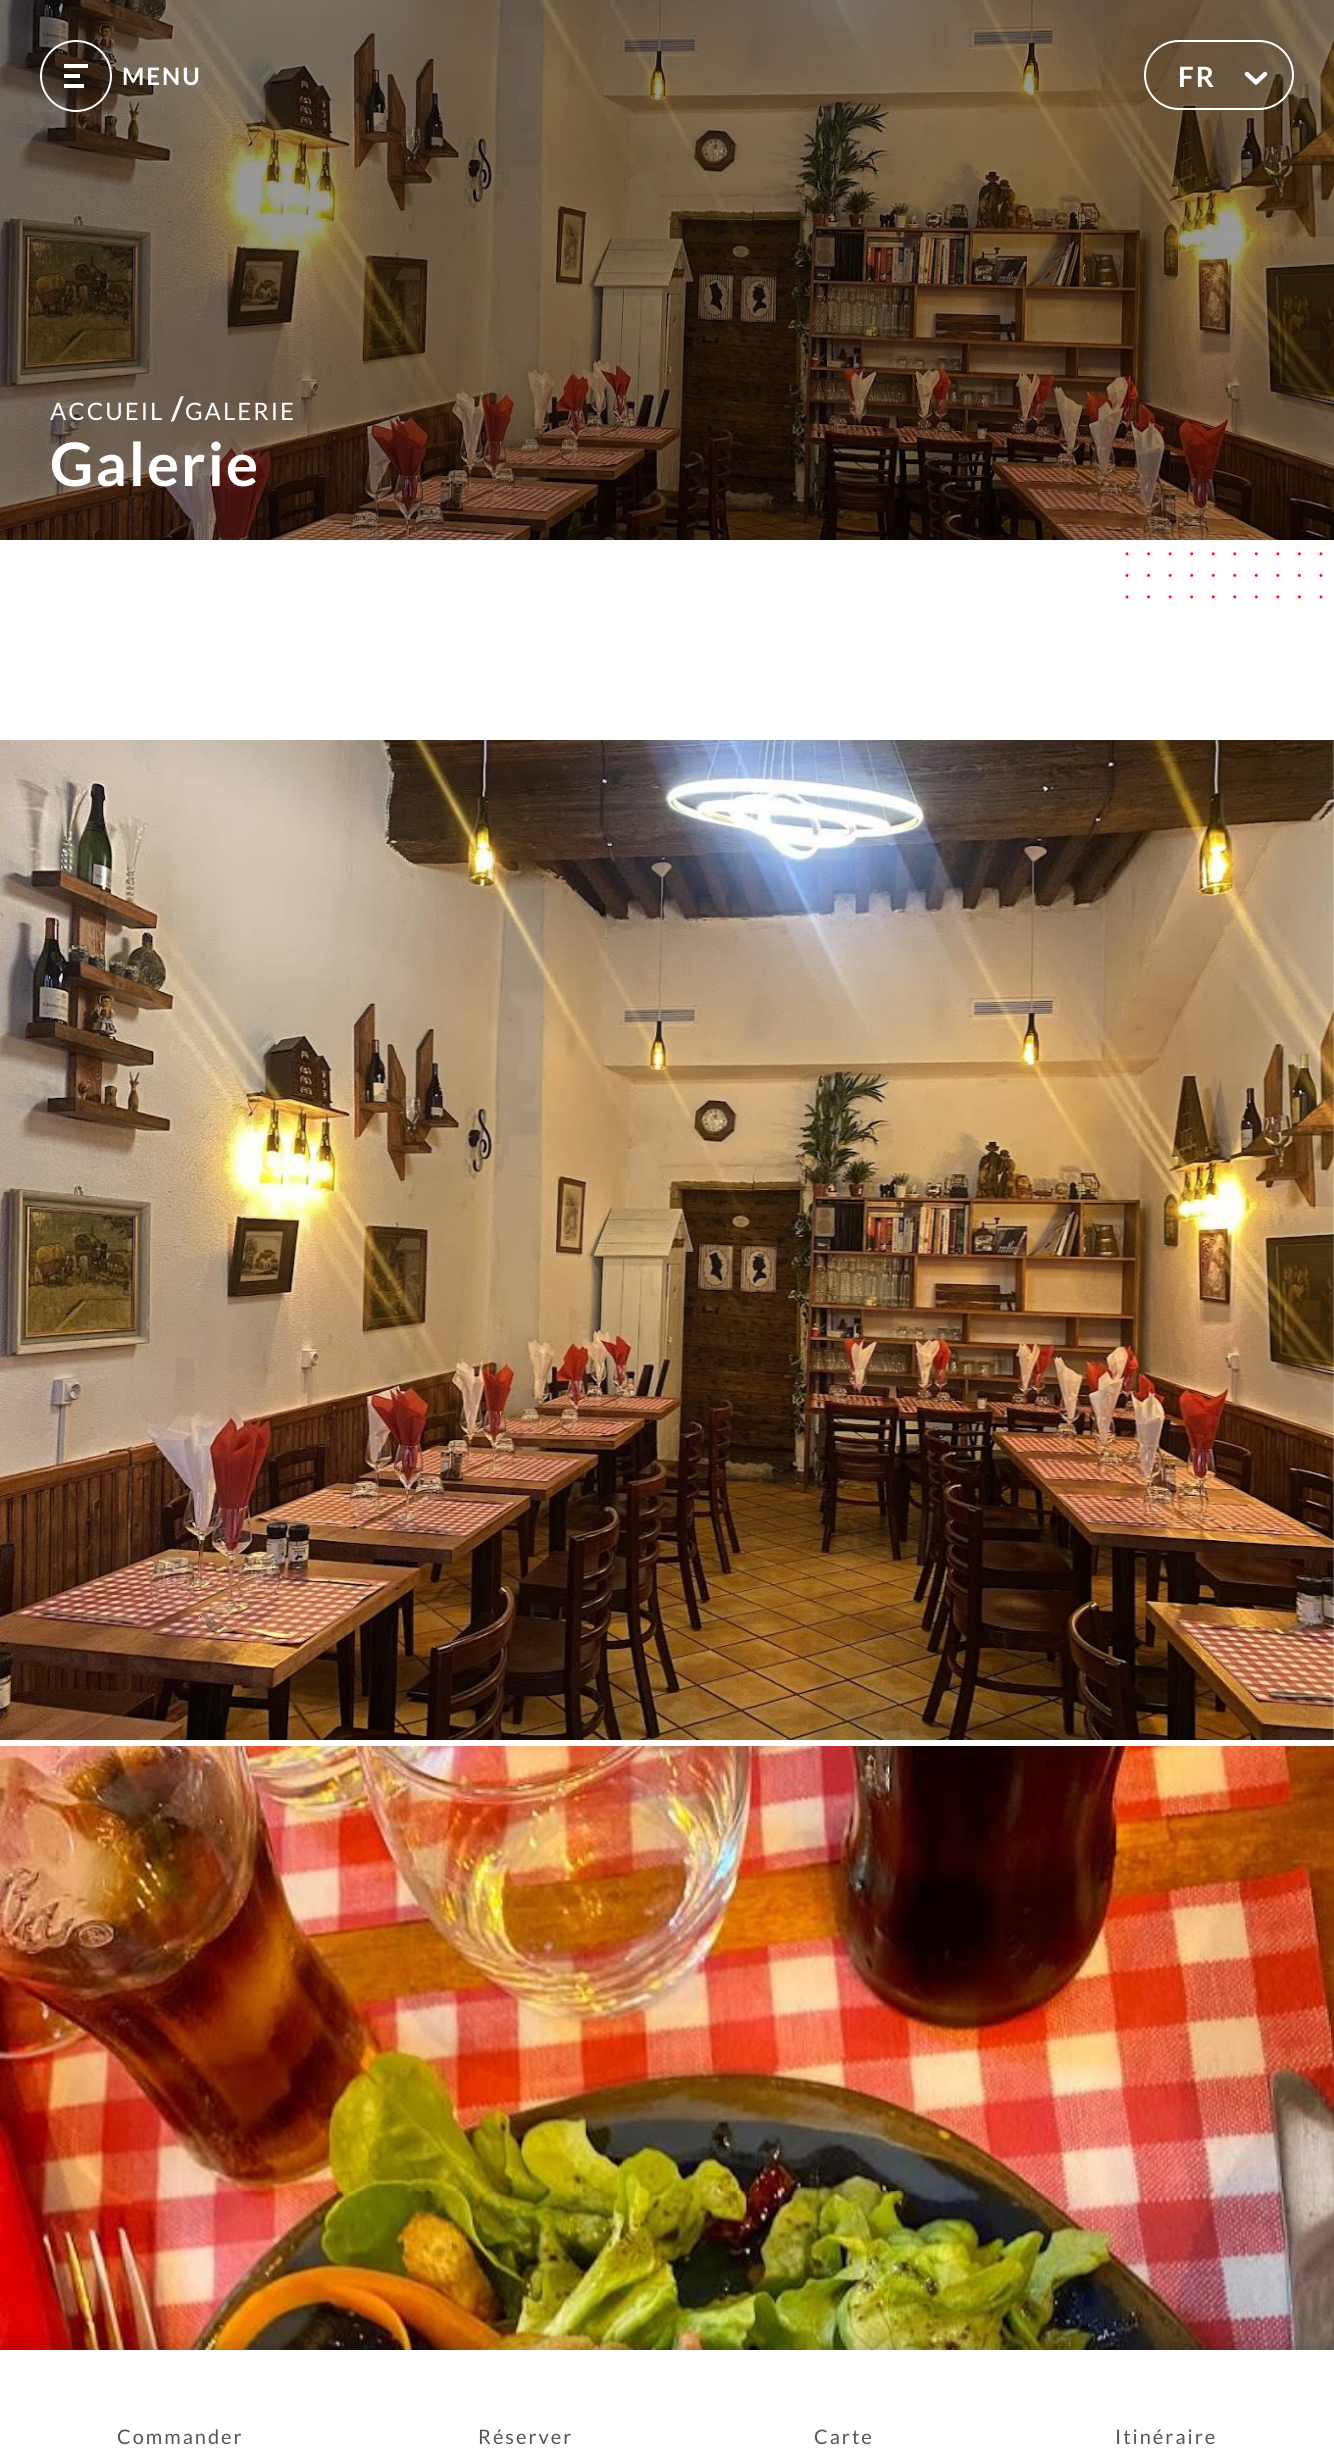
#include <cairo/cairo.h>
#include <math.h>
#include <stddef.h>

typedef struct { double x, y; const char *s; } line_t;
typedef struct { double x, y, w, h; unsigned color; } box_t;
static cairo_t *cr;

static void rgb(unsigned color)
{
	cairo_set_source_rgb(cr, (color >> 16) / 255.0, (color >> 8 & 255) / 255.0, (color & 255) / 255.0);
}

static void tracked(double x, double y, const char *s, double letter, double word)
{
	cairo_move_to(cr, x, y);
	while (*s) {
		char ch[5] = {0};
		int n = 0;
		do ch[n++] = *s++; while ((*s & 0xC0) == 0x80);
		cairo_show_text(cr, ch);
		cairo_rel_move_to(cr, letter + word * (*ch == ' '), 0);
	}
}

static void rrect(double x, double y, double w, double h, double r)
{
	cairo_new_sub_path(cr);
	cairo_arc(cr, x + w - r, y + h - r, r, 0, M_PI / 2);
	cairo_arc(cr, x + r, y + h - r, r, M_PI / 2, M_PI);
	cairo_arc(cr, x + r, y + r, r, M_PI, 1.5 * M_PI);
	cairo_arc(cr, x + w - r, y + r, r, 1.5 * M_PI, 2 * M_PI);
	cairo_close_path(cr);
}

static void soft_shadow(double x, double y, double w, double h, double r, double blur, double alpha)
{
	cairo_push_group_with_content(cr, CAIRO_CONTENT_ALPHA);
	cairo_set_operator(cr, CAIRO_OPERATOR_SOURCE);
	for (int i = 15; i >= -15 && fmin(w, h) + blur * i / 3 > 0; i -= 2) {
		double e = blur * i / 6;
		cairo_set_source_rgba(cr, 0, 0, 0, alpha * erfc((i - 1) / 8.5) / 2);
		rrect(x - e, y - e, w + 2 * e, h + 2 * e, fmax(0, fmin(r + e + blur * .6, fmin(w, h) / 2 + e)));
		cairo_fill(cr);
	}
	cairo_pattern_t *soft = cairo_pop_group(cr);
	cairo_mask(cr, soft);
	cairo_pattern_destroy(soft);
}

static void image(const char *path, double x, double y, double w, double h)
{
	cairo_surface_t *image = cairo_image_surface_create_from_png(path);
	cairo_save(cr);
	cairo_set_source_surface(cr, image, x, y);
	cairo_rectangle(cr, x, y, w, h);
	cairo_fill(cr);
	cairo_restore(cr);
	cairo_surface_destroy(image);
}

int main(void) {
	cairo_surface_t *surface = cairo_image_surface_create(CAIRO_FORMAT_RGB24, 1334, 2458);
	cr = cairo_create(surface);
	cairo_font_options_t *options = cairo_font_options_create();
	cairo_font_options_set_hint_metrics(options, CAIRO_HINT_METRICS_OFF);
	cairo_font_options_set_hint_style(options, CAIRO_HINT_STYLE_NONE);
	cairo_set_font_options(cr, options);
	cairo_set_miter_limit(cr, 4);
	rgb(0xffffff);
	cairo_paint(cr);
	image("img/1.png", 0, 0, 1334, 540);
	cairo_arc(cr, 76, 76, 35, 0, 2 * M_PI);
	rgb(0xffffff);
	cairo_stroke(cr);
	{
		static const box_t items[] = {
			{64, 64, 24, 4, 0xffffff},
			{64, 74, 16, 4, 0xffffff},
			{64, 84, 20, 4, 0xffffff},
		};
		for (size_t i = 0; i < sizeof items / sizeof *items; i++) {
			rgb(items[i].color);
			cairo_rectangle(cr, items[i].x, items[i].y, items[i].w, items[i].h);
			cairo_fill(cr);
		}
	}
	rrect(1145, 41, 148, 68, 34);
	cairo_stroke(cr);
	cairo_new_path(cr);
	cairo_move_to(cr, 1247, 74);
	cairo_line_to(cr, 1256, 82.5);
	cairo_line_to(cr, 1265, 74);
	cairo_set_line_width(cr, 4.4);
	cairo_set_line_cap(cr, CAIRO_LINE_CAP_ROUND);
	cairo_set_line_join(cr, CAIRO_LINE_JOIN_ROUND);
	cairo_stroke(cr);
	image("img/2.png", 1125, 552, 198, 47);
	image("img/3.png", 0, 740, 1334, 1000);
	image("img/4.png", 0, 1746, 1334, 604);
	rgb(0x000000);
	soft_shadow(0, 2344, 1334, 108, 0, 10, 0.2);
	rgb(0xffffff);
	cairo_rectangle(cr, 0, 2350, 1334, 108);
	cairo_fill(cr);
	cairo_select_font_face(cr, "Lato", CAIRO_FONT_SLANT_NORMAL, CAIRO_FONT_WEIGHT_BOLD);
	cairo_set_font_size(cr, 24);
	tracked(122, 85, "MENU", 2, 0);
	cairo_set_font_size(cr, 28);
	tracked(1178, 87, "FR", 2, 0);
	cairo_select_font_face(cr, "Lato", CAIRO_FONT_SLANT_NORMAL, CAIRO_FONT_WEIGHT_NORMAL);
	cairo_set_font_size(cr, 24);
	tracked(50, 420, "ACCUEIL", 2, 0);
	cairo_select_font_face(cr, "Lato", CAIRO_FONT_SLANT_NORMAL, CAIRO_FONT_WEIGHT_BOLD);
	cairo_set_font_size(cr, 32);
	tracked(171, 420, "/", 2, 0);
	cairo_select_font_face(cr, "Lato", CAIRO_FONT_SLANT_NORMAL, CAIRO_FONT_WEIGHT_NORMAL);
	cairo_set_font_size(cr, 24);
	tracked(185, 420, "GALERIE", 2, 0);
	cairo_select_font_face(cr, "Lato", CAIRO_FONT_SLANT_NORMAL, CAIRO_FONT_WEIGHT_BOLD);
	cairo_set_font_size(cr, 60);
	tracked(50, 486, "Galerie", 2, 0);
	cairo_select_font_face(cr, "Lato", CAIRO_FONT_SLANT_NORMAL, CAIRO_FONT_WEIGHT_NORMAL);
	cairo_set_font_size(cr, 20);
	rgb(0x555555);
	{
		static const line_t items[] = {
			{117, 2444, "Commander"},
			{478, 2444, "Réserver"},
			{814, 2444, "Carte"},
			{1115, 2444, "Itinéraire"},
		};
		for (size_t i = 0; i < sizeof items / sizeof *items; i++) {
			tracked(items[i].x, items[i].y, items[i].s, 2, 0);
		}
	}
	cairo_surface_write_to_png(surface, "page.png");
	cairo_font_options_destroy(options);
	cairo_destroy(cr);
	cairo_surface_destroy(surface);
	return 0;
}
